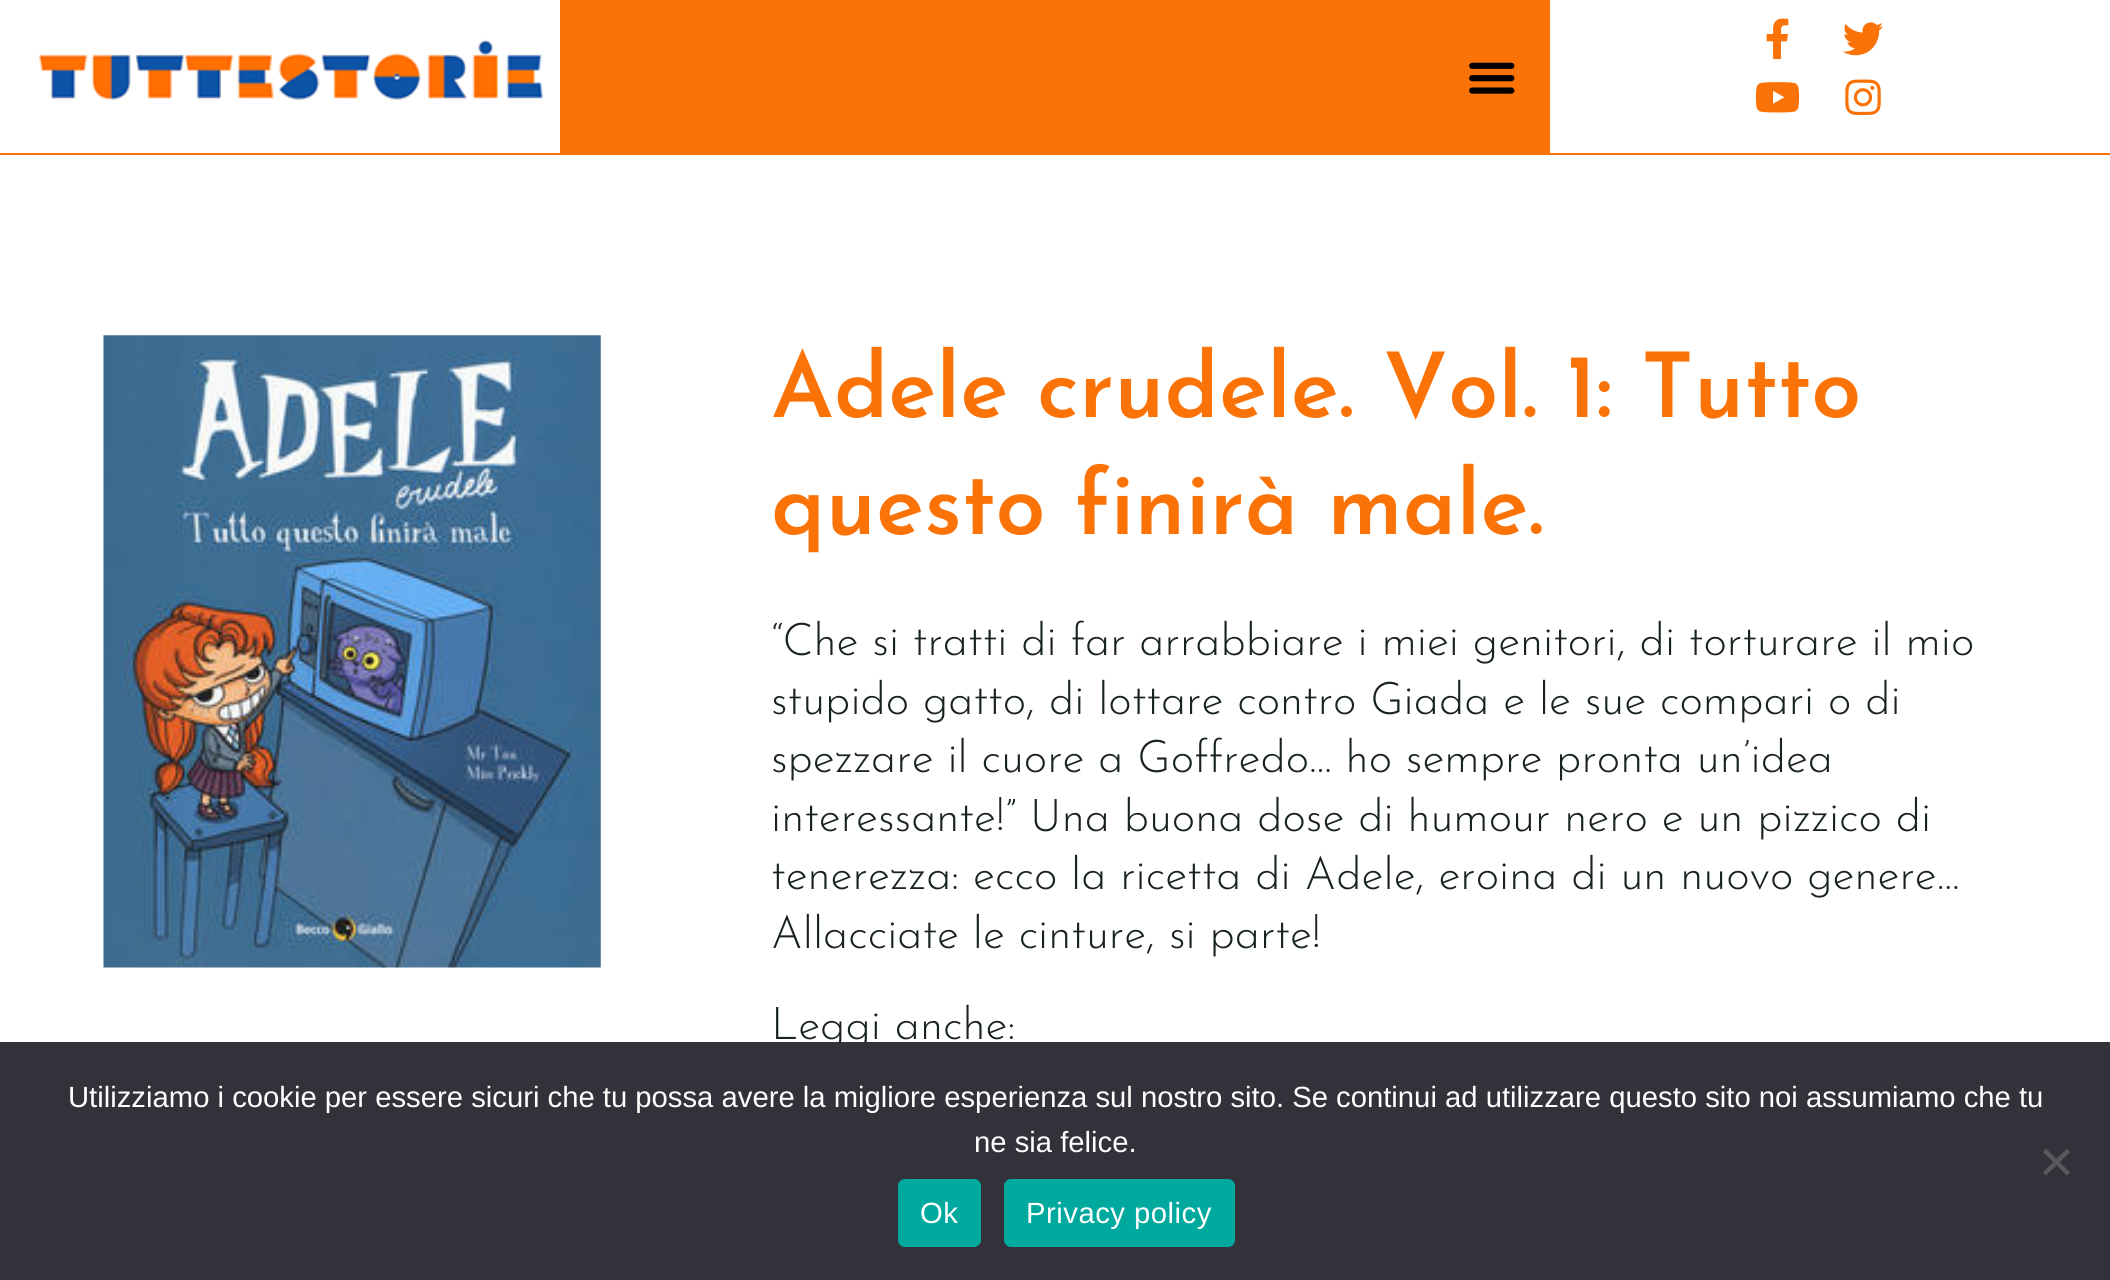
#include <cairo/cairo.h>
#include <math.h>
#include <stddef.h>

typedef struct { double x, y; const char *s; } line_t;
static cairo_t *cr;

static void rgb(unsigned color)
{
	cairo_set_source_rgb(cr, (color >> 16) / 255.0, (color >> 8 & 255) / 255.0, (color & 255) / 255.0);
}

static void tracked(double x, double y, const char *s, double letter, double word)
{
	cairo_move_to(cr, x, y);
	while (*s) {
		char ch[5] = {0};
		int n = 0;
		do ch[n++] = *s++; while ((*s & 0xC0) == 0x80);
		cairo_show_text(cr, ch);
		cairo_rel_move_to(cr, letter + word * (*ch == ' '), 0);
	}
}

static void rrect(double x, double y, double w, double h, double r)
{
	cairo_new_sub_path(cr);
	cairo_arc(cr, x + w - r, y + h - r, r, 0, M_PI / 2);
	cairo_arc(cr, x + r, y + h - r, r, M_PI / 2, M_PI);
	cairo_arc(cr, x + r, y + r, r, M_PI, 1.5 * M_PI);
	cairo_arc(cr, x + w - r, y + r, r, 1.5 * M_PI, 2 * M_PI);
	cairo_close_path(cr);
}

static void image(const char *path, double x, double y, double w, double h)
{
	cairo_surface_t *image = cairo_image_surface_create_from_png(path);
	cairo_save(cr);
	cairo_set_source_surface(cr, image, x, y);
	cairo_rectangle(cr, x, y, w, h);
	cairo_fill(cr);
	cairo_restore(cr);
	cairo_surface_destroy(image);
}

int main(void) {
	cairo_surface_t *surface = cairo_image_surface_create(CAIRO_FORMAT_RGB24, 2110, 1280);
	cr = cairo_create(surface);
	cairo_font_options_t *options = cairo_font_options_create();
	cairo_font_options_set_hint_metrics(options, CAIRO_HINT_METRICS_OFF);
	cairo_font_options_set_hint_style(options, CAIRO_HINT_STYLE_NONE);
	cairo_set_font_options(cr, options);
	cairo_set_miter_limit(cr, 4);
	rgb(0xffffff);
	cairo_paint(cr);
	rgb(0xfb7206);
	cairo_rectangle(cr, 0, 153, 2110, 2);
	cairo_fill(cr);
	image("img/1.png", 39, 39, 505, 61);
	cairo_rectangle(cr, 560, 0, 990, 153);
	cairo_fill(cr);
	image("img/2.png", 1469, 62, 46, 32);
	image("img/3.png", 1766, 18, 23, 42);
	image("img/4.png", 1843, 22, 41, 34);
	image("img/5.png", 1755, 82, 45, 31);
	image("img/6.png", 1845, 79, 36, 36);
	image("img/7.png", 103, 335, 498, 633);
	cairo_select_font_face(cr, "Josefin Sans SemiBold", CAIRO_FONT_SLANT_NORMAL, CAIRO_FONT_WEIGHT_NORMAL);
	cairo_set_font_size(cr, 90);
	cairo_move_to(cr, 771, 417);
	cairo_show_text(cr, "Adele crudele. Vol. 1: Tutto");
	cairo_move_to(cr, 771, 534);
	cairo_show_text(cr, "questo finirà male.");
	cairo_select_font_face(cr, "Josefin Sans Light", CAIRO_FONT_SLANT_NORMAL, CAIRO_FONT_WEIGHT_NORMAL);
	cairo_set_font_size(cr, 45);
	rgb(0x192223);
	{
		static const line_t items[] = {
			{771, 655, "“Che si tratti di far arrabbiare i miei genitori, di torturare il mio"},
			{771, 714, "stupido gatto, di lottare contro Giada e le sue compari o di"},
			{771, 772, "spezzare il cuore a Goffredo… ho sempre pronta un’idea"},
			{771, 831, "interessante!” Una buona dose di humour nero e un pizzico di"},
			{771, 889, "tenerezza: ecco la ricetta di Adele, eroina di un nuovo genere…"},
			{771, 948, "Allacciate le cinture, si parte!"},
			{771, 1039, "Leggi anche:"},
		};
		for (size_t i = 0; i < sizeof items / sizeof *items; i++) {
			cairo_move_to(cr, items[i].x, items[i].y);
			cairo_show_text(cr, items[i].s);
		}
	}
	rgb(0x32323a);
	cairo_rectangle(cr, 0, 1042, 2110, 238);
	cairo_fill(cr);
	cairo_select_font_face(cr, "Liberation Sans", CAIRO_FONT_SLANT_NORMAL, CAIRO_FONT_WEIGHT_NORMAL);
	cairo_set_font_size(cr, 29.25);
	rgb(0xffffff);
	cairo_move_to(cr, 68, 1107);
	cairo_show_text(cr, "Utilizziamo i cookie per essere sicuri che tu possa avere la migliore esperienza sul nostro sito. Se continui ad utilizzare questo sito noi assumiamo che tu");
	cairo_move_to(cr, 974, 1152);
	cairo_show_text(cr, "ne sia felice.");
	rgb(0x59595d);
	cairo_new_path(cr);
	cairo_move_to(cr, 2067, 1148.5);
	cairo_line_to(cr, 2070, 1152);
	cairo_line_to(cr, 2046, 1175.5);
	cairo_line_to(cr, 2043, 1172.5);
	cairo_close_path(cr);
	cairo_fill(cr);
	cairo_new_path(cr);
	cairo_move_to(cr, 2043, 1152);
	cairo_line_to(cr, 2046, 1148.5);
	cairo_line_to(cr, 2070, 1172.5);
	cairo_line_to(cr, 2067, 1175.5);
	cairo_close_path(cr);
	cairo_fill(cr);
	rgb(0x00a99d);
	rrect(898, 1179, 83, 68, 7);
	cairo_fill(cr);
	rgb(0xffffff);
	tracked(920, 1223, "Ok", 0.5, 0);
	rgb(0x00a99d);
	rrect(1004, 1179, 231, 68, 7);
	cairo_fill(cr);
	rgb(0xffffff);
	tracked(1026, 1223, "Privacy policy", 0.5, 0);
	cairo_surface_write_to_png(surface, "page.png");
	cairo_font_options_destroy(options);
	cairo_destroy(cr);
	cairo_surface_destroy(surface);
	return 0;
}
